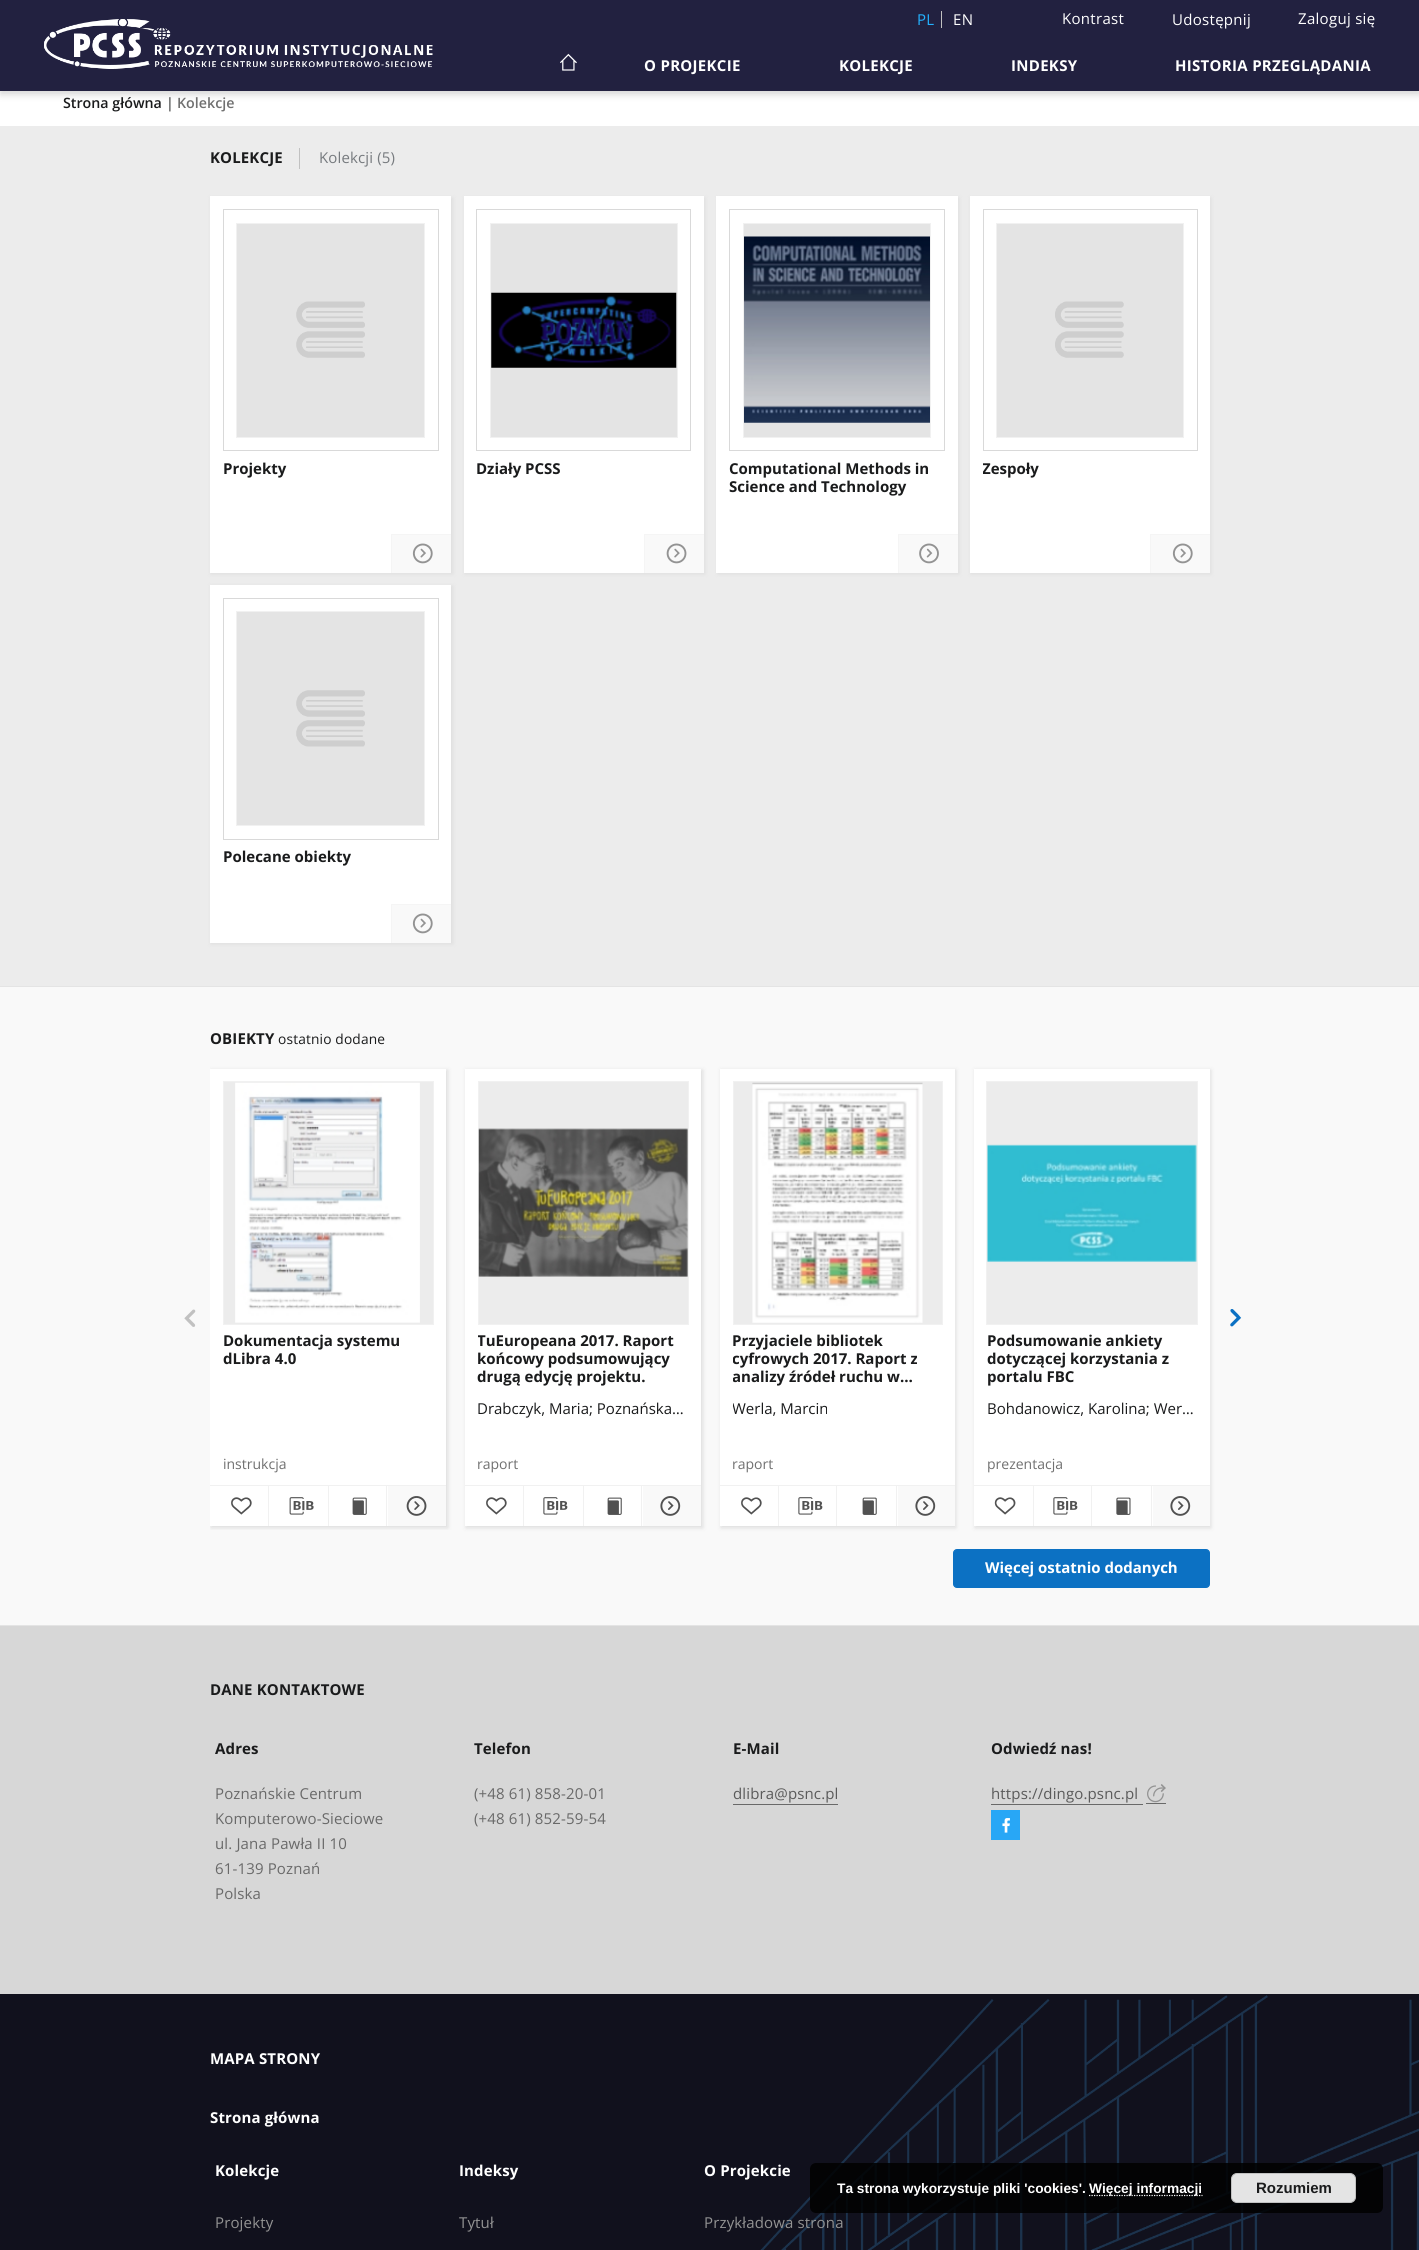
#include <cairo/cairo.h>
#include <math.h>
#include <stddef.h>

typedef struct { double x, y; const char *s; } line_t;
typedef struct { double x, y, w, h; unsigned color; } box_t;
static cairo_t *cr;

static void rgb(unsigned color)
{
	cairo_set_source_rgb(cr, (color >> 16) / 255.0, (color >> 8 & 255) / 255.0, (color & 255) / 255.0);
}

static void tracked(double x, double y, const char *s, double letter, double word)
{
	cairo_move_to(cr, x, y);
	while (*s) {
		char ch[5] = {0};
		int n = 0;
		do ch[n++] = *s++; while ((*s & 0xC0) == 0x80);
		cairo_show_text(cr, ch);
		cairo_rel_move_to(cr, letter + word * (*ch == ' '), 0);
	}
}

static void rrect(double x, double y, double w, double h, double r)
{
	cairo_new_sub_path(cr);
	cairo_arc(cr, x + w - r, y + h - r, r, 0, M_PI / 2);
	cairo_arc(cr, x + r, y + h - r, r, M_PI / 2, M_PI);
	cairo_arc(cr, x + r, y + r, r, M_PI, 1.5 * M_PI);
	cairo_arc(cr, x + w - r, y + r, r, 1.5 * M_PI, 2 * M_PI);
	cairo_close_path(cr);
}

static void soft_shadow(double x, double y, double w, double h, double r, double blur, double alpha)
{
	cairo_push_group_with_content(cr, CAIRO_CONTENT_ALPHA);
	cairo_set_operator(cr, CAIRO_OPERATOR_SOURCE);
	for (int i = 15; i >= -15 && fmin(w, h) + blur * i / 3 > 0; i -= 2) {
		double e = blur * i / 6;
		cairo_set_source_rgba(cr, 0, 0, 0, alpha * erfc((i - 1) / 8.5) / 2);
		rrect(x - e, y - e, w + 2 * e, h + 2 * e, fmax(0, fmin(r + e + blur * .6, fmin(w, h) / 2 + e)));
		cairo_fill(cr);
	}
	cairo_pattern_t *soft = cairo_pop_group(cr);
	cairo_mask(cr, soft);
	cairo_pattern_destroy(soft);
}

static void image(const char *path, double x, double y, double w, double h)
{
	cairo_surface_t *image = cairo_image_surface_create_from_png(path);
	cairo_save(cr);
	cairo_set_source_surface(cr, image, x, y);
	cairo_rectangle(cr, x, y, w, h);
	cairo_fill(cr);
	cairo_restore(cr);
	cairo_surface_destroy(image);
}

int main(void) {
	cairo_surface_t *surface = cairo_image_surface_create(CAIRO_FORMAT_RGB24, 1419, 2250);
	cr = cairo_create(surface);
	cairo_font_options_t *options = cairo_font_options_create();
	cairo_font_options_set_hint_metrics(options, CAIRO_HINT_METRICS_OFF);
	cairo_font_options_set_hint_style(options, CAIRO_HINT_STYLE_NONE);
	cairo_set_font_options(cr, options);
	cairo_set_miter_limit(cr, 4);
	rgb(0xf9f9f9);
	cairo_paint(cr);
	rgb(0xffffff);
	cairo_rectangle(cr, 0, 91, 1419, 35);
	cairo_fill(cr);
	rgb(0x000000);
	soft_shadow(0, 1, 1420, 92, 0, 6, 0.08);
	soft_shadow(0, 5, 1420, 91, 0, 3, 0.06);
	soft_shadow(1, 4, 1418, 89, 0, 2.5, 0.06);
	rgb(0x222140);
	cairo_rectangle(cr, 0, 0, 1419, 91);
	cairo_fill(cr);
	rgb(0xc1c1c1);
	cairo_rectangle(cr, 941, 11, 1, 17);
	cairo_fill(cr);
	image("img/1.png", 44, 19, 389, 50);
	image("img/2.png", 560, 53, 17, 18);
	rgb(0xececec);
	cairo_rectangle(cr, 0, 126, 1419, 860);
	cairo_fill(cr);
	rgb(0xc1c1c1);
	cairo_rectangle(cr, 299, 148, 1, 21);
	cairo_fill(cr);
	rgb(0xdedede);
	soft_shadow(211, 198, 242, 376, 0, 2, 1);
	rgb(0xffffff);
	cairo_rectangle(cr, 210, 196, 241, 377);
	cairo_fill(cr);
	cairo_rectangle(cr, 223.5, 209.5, 215, 241);
	rgb(0xd9d9d9);
	cairo_set_line_width(cr, 1);
	cairo_stroke(cr);
	rgb(0xe4e4e4);
	cairo_rectangle(cr, 236.5, 223.5, 188, 214);
	cairo_fill_preserve(cr);
	rgb(0xf1f1f1);
	cairo_stroke(cr);
	image("img/3.png", 296, 301, 69, 57);
	{
		static const box_t items[] = {
			{392, 535, 59, 38, 0xf9f9f9},
			{391, 534, 60, 1, 0xf5f5f5},
			{391, 534, 1, 39, 0xf5f5f5},
		};
		for (size_t i = 0; i < sizeof items / sizeof *items; i++) {
			rgb(items[i].color);
			cairo_rectangle(cr, items[i].x, items[i].y, items[i].w, items[i].h);
			cairo_fill(cr);
		}
	}
	image("img/4.png", 412, 543, 21, 21);
	rgb(0xdedede);
	soft_shadow(465, 198, 240, 376, 0, 2, 1);
	rgb(0xffffff);
	cairo_rectangle(cr, 464, 196, 240, 377);
	cairo_fill(cr);
	cairo_rectangle(cr, 476.5, 209.5, 214, 241);
	rgb(0xd9d9d9);
	cairo_stroke(cr);
	rgb(0xe4e4e4);
	cairo_rectangle(cr, 491, 224, 186, 213);
	cairo_fill(cr);
	image("img/5.png", 491, 292, 186, 76);
	cairo_rectangle(cr, 490.5, 223.5, 187, 214);
	rgb(0xf1f1f1);
	cairo_stroke(cr);
	{
		static const box_t items[] = {
			{645, 535, 59, 38, 0xf9f9f9},
			{644, 534, 60, 1, 0xf5f5f5},
			{644, 534, 1, 39, 0xf5f5f5},
		};
		for (size_t i = 0; i < sizeof items / sizeof *items; i++) {
			rgb(items[i].color);
			cairo_rectangle(cr, items[i].x, items[i].y, items[i].w, items[i].h);
			cairo_fill(cr);
		}
	}
	image("img/6.png", 666, 543, 21, 21);
	rgb(0xdedede);
	soft_shadow(718, 198, 241, 376, 0, 2, 1);
	rgb(0xffffff);
	cairo_rectangle(cr, 716, 196, 242, 377);
	cairo_fill(cr);
	cairo_rectangle(cr, 729.5, 209.5, 215, 241);
	rgb(0xd9d9d9);
	cairo_stroke(cr);
	rgb(0xe4e4e4);
	cairo_rectangle(cr, 744, 224, 186, 213);
	cairo_fill(cr);
	image("img/7.png", 744, 236, 186, 187);
	cairo_rectangle(cr, 743.5, 223.5, 187, 214);
	rgb(0xf1f1f1);
	cairo_stroke(cr);
	{
		static const box_t items[] = {
			{899, 535, 59, 38, 0xf9f9f9},
			{898, 534, 60, 1, 0xf5f5f5},
			{898, 534, 1, 39, 0xf5f5f5},
		};
		for (size_t i = 0; i < sizeof items / sizeof *items; i++) {
			rgb(items[i].color);
			cairo_rectangle(cr, items[i].x, items[i].y, items[i].w, items[i].h);
			cairo_fill(cr);
		}
	}
	image("img/8.png", 919, 543, 20, 21);
	rgb(0xdedede);
	soft_shadow(971, 198, 240, 376, 0, 2, 1);
	rgb(0xffffff);
	cairo_rectangle(cr, 970, 196, 240, 377);
	cairo_fill(cr);
	cairo_rectangle(cr, 983.5, 209.5, 214, 241);
	rgb(0xd9d9d9);
	cairo_stroke(cr);
	rgb(0xe4e4e4);
	cairo_rectangle(cr, 996.5, 223.5, 187, 214);
	cairo_fill_preserve(cr);
	rgb(0xf1f1f1);
	cairo_stroke(cr);
	image("img/9.png", 1055, 301, 69, 57);
	{
		static const box_t items[] = {
			{1151, 535, 59, 38, 0xf9f9f9},
			{1150, 534, 60, 1, 0xf5f5f5},
			{1150, 534, 1, 39, 0xf5f5f5},
		};
		for (size_t i = 0; i < sizeof items / sizeof *items; i++) {
			rgb(items[i].color);
			cairo_rectangle(cr, items[i].x, items[i].y, items[i].w, items[i].h);
			cairo_fill(cr);
		}
	}
	image("img/4.png", 1172, 543, 21, 21);
	rgb(0xdedede);
	soft_shadow(211, 586, 242, 358, 0, 2, 1);
	rgb(0xffffff);
	cairo_rectangle(cr, 210, 585, 241, 358);
	cairo_fill(cr);
	cairo_rectangle(cr, 223.5, 598.5, 215, 241);
	rgb(0xd9d9d9);
	cairo_stroke(cr);
	rgb(0xe4e4e4);
	cairo_rectangle(cr, 236.5, 611.5, 188, 214);
	cairo_fill_preserve(cr);
	rgb(0xf1f1f1);
	cairo_stroke(cr);
	image("img/10.png", 296, 690, 69, 57);
	{
		static const box_t items[] = {
			{392, 905, 59, 38, 0xf9f9f9},
			{391, 904, 60, 1, 0xf5f5f5},
			{391, 904, 1, 39, 0xf5f5f5},
		};
		for (size_t i = 0; i < sizeof items / sizeof *items; i++) {
			rgb(items[i].color);
			cairo_rectangle(cr, items[i].x, items[i].y, items[i].w, items[i].h);
			cairo_fill(cr);
		}
	}
	image("img/4.png", 412, 913, 21, 21);
	rgb(0xe4e4e4);
	cairo_rectangle(cr, 0, 986, 1419, 1);
	cairo_fill(cr);
	image("img/11.png", 184, 1309, 12, 18);
	image("img/12.png", 1230, 1309, 12, 18);
	cairo_save(cr);
	cairo_rectangle(cr, 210, 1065, 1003, 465);
	cairo_clip(cr);
	rgb(0xdedede);
	soft_shadow(211, 1070, 237, 458, 0, 2, 1);
	cairo_restore(cr);
	rgb(0xffffff);
	cairo_rectangle(cr, 210, 1069, 236, 457);
	cairo_fill(cr);
	rgb(0xececec);
	cairo_rectangle(cr, 223.5, 1081.5, 210, 243);
	cairo_fill_preserve(cr);
	rgb(0xf1f1f1);
	cairo_stroke(cr);
	image("img/13.png", 235, 1082, 185, 241);
	cairo_rectangle(cr, 210, 1485, 236, 1);
	cairo_fill(cr);
	cairo_rectangle(cr, 268, 1486, 1, 40);
	cairo_fill(cr);
	image("img/14.png", 231, 1497, 21, 18);
	cairo_rectangle(cr, 328, 1486, 1, 40);
	cairo_fill(cr);
	image("img/15.png", 289, 1497, 25, 18);
	cairo_rectangle(cr, 386, 1486, 1, 40);
	cairo_fill(cr);
	image("img/16.png", 352, 1497, 15, 18);
	rgb(0xf9f9f9);
	cairo_rectangle(cr, 388, 1486, 58, 40);
	cairo_fill(cr);
	image("img/17.png", 406, 1496, 21, 20);
	rgb(0xdedede);
	soft_shadow(466, 1070, 237, 458, 0, 2, 1);
	rgb(0xffffff);
	cairo_rectangle(cr, 465, 1069, 236, 457);
	cairo_fill(cr);
	rgb(0xececec);
	cairo_rectangle(cr, 478.5, 1081.5, 210, 243);
	cairo_fill_preserve(cr);
	rgb(0xf1f1f1);
	cairo_stroke(cr);
	image("img/18.png", 478, 1128, 210, 149);
	cairo_rectangle(cr, 465, 1485, 236, 1);
	cairo_fill(cr);
	cairo_rectangle(cr, 523, 1486, 1, 40);
	cairo_fill(cr);
	image("img/14.png", 486, 1497, 21, 18);
	cairo_rectangle(cr, 583, 1486, 1, 40);
	cairo_fill(cr);
	image("img/19.png", 543, 1497, 25, 18);
	cairo_rectangle(cr, 641, 1486, 1, 40);
	cairo_fill(cr);
	image("img/16.png", 607, 1497, 15, 18);
	rgb(0xf9f9f9);
	cairo_rectangle(cr, 643, 1486, 58, 40);
	cairo_fill(cr);
	image("img/20.png", 660, 1496, 21, 20);
	rgb(0xdedede);
	soft_shadow(721, 1070, 235, 458, 0, 2, 1);
	rgb(0xffffff);
	cairo_rectangle(cr, 720, 1069, 235, 457);
	cairo_fill(cr);
	rgb(0xececec);
	cairo_rectangle(cr, 733.5, 1081.5, 209, 243);
	cairo_fill_preserve(cr);
	rgb(0xf1f1f1);
	cairo_stroke(cr);
	image("img/21.png", 752, 1082, 171, 241);
	cairo_rectangle(cr, 720, 1485, 235, 1);
	cairo_fill(cr);
	cairo_rectangle(cr, 778, 1486, 1, 40);
	cairo_fill(cr);
	image("img/14.png", 741, 1497, 21, 18);
	cairo_rectangle(cr, 836, 1486, 1, 40);
	cairo_fill(cr);
	image("img/19.png", 798, 1497, 25, 18);
	cairo_rectangle(cr, 896, 1486, 1, 40);
	cairo_fill(cr);
	image("img/16.png", 862, 1497, 15, 18);
	rgb(0xf9f9f9);
	cairo_rectangle(cr, 898, 1486, 57, 40);
	cairo_fill(cr);
	image("img/20.png", 915, 1496, 21, 20);
	rgb(0xdedede);
	soft_shadow(975, 1070, 236, 458, 0, 2, 1);
	rgb(0xffffff);
	cairo_rectangle(cr, 974, 1069, 236, 457);
	cairo_fill(cr);
	rgb(0xececec);
	cairo_rectangle(cr, 986.5, 1081.5, 211, 243);
	cairo_fill_preserve(cr);
	rgb(0xf1f1f1);
	cairo_stroke(cr);
	image("img/22.png", 987, 1144, 210, 118);
	cairo_rectangle(cr, 974, 1485, 236, 1);
	cairo_fill(cr);
	cairo_rectangle(cr, 1033, 1486, 1, 40);
	cairo_fill(cr);
	image("img/23.png", 994, 1497, 22, 18);
	cairo_rectangle(cr, 1091, 1486, 1, 40);
	cairo_fill(cr);
	image("img/19.png", 1053, 1497, 25, 18);
	cairo_rectangle(cr, 1151, 1486, 1, 40);
	cairo_fill(cr);
	image("img/24.png", 1116, 1497, 15, 18);
	rgb(0xf9f9f9);
	cairo_rectangle(cr, 1153, 1486, 57, 40);
	cairo_fill(cr);
	image("img/20.png", 1170, 1496, 21, 20);
	rgb(0x0c71c3);
	rrect(953.5, 1549.5, 256, 38, 3.5);
	cairo_fill_preserve(cr);
	cairo_stroke(cr);
	{
		static const box_t items[] = {
			{0, 1626, 1419, 368, 0xd7d7d7},
			{0, 1625, 1419, 1, 0xe4e4e4},
			{733, 1804, 105, 1, 0x696969},
			{991, 1804, 152, 1, 0x696969},
			{1146, 1803, 20, 1, 0x696969},
		};
		for (size_t i = 0; i < sizeof items / sizeof *items; i++) {
			rgb(items[i].color);
			cairo_rectangle(cr, items[i].x, items[i].y, items[i].w, items[i].h);
			cairo_fill(cr);
		}
	}
	image("img/25.png", 1147, 1784, 19, 19);
	rgb(0x28a7f6);
	cairo_rectangle(cr, 991, 1810, 29, 30);
	cairo_fill(cr);
	image("img/26.png", 1002, 1818, 8, 15);
	rgb(0x11111d);
	cairo_rectangle(cr, 0, 1994, 1419, 256);
	cairo_fill(cr);
	image("img/27.png", 760, 1995, 659, 255);
	cairo_set_source_rgba(cr, 0, 0, 0, 0.85);
	rrect(810, 2163, 573, 50, 6);
	cairo_fill(cr);
	cairo_new_path(cr);
	cairo_move_to(cr, 1089, 2195.5);
	cairo_line_to(cr, 1202.5, 2195.5);
	rgb(0xffffff);
	cairo_set_line_width(cr, 1.2);
	cairo_set_dash(cr, (double[]){1.25, 1.25}, 2, 0);
	cairo_stroke(cr);
	rgb(0xe4e4e4);
	rrect(1231.5, 2173.5, 124, 29, 5.5);
	cairo_fill_preserve(cr);
	rgb(0xc1c1c1);
	cairo_set_line_width(cr, 1);
	cairo_set_dash(cr, NULL, 0, 0);
	cairo_stroke(cr);
	cairo_select_font_face(cr, "Open Sans", CAIRO_FONT_SLANT_NORMAL, CAIRO_FONT_WEIGHT_NORMAL);
	cairo_set_font_size(cr, 15);
	rgb(0x23b2ff);
	tracked(917, 25, "PL", 0.3, 0);
	rgb(0xffffff);
	{
		static const line_t items[] = {
			{953, 25, "EN"},
			{1062, 24, "Kontrast"},
			{1172, 25, "Udostępnij"},
			{1298, 24, "Zaloguj się"},
		};
		for (size_t i = 0; i < sizeof items / sizeof *items; i++) {
			tracked(items[i].x, items[i].y, items[i].s, 0.3, 0);
		}
	}
	cairo_select_font_face(cr, "Open Sans", CAIRO_FONT_SLANT_NORMAL, CAIRO_FONT_WEIGHT_BOLD);
	{
		static const line_t items[] = {
			{644, 71, "O PROJEKCIE"},
			{839, 71, "KOLEKCJE"},
			{1011, 71, "INDEKSY"},
			{1175, 71, "HISTORIA PRZEGLĄDANIA"},
		};
		for (size_t i = 0; i < sizeof items / sizeof *items; i++) {
			tracked(items[i].x, items[i].y, items[i].s, 0.3, 0);
		}
	}
	cairo_select_font_face(cr, "Open Sans SemiBold", CAIRO_FONT_SLANT_NORMAL, CAIRO_FONT_WEIGHT_NORMAL);
	cairo_set_font_size(cr, 14.25);
	rgb(0x1a1b1c);
	cairo_move_to(cr, 63, 108);
	cairo_show_text(cr, "Strona główna");
	cairo_select_font_face(cr, "Open Sans", CAIRO_FONT_SLANT_NORMAL, CAIRO_FONT_WEIGHT_NORMAL);
	cairo_move_to(cr, 166, 108);
	cairo_show_text(cr, "|");
	cairo_select_font_face(cr, "Open Sans SemiBold", CAIRO_FONT_SLANT_NORMAL, CAIRO_FONT_WEIGHT_NORMAL);
	rgb(0x707070);
	cairo_move_to(cr, 177, 108);
	cairo_show_text(cr, "Kolekcje");
	cairo_select_font_face(cr, "Open Sans", CAIRO_FONT_SLANT_NORMAL, CAIRO_FONT_WEIGHT_BOLD);
	cairo_set_font_size(cr, 15);
	rgb(0x1a1b1c);
	tracked(210, 163, "KOLEKCJE", 0.15, 0);
	cairo_select_font_face(cr, "Open Sans", CAIRO_FONT_SLANT_NORMAL, CAIRO_FONT_WEIGHT_NORMAL);
	rgb(0x767a7e);
	tracked(319, 163, "Kolekcji (5)", 0.15, 0);
	cairo_select_font_face(cr, "Open Sans", CAIRO_FONT_SLANT_NORMAL, CAIRO_FONT_WEIGHT_BOLD);
	rgb(0x1a1b1c);
	{
		static const line_t items[] = {
			{223, 474, "Projekty"},
			{476, 474, "Działy PCSS"},
			{729, 474, "Computational Methods in"},
			{729, 492, "Science and Technology"},
		};
		for (size_t i = 0; i < sizeof items / sizeof *items; i++) {
			cairo_move_to(cr, items[i].x, items[i].y);
			cairo_show_text(cr, items[i].s);
		}
	}
	cairo_save(cr);
	cairo_rectangle(cr, 983, 460, 215, 18);
	cairo_clip(cr);
	cairo_move_to(cr, 982, 474);
	cairo_show_text(cr, "Zespoły");
	cairo_restore(cr);
	cairo_move_to(cr, 223, 862);
	cairo_show_text(cr, "Polecane obiekty");
	tracked(210, 1044, "OBIEKTY", 0.15, 0);
	cairo_select_font_face(cr, "Open Sans", CAIRO_FONT_SLANT_NORMAL, CAIRO_FONT_WEIGHT_NORMAL);
	cairo_set_font_size(cr, 13.75);
	tracked(278, 1044, "ostatnio dodane", 0.15, 0);
	cairo_select_font_face(cr, "Open Sans", CAIRO_FONT_SLANT_NORMAL, CAIRO_FONT_WEIGHT_BOLD);
	cairo_set_font_size(cr, 15);
	cairo_move_to(cr, 223, 1346);
	cairo_show_text(cr, "Dokumentacja systemu");
	cairo_move_to(cr, 223, 1364);
	cairo_show_text(cr, "dLibra 4.0");
	cairo_select_font_face(cr, "Open Sans", CAIRO_FONT_SLANT_NORMAL, CAIRO_FONT_WEIGHT_NORMAL);
	cairo_set_font_size(cr, 14);
	rgb(0x707070);
	cairo_move_to(cr, 223, 1469);
	cairo_show_text(cr, "instrukcja");
	cairo_save(cr);
	cairo_rectangle(cr, 478, 1325, 211, 61);
	cairo_clip(cr);
	cairo_select_font_face(cr, "Open Sans", CAIRO_FONT_SLANT_NORMAL, CAIRO_FONT_WEIGHT_BOLD);
	cairo_set_font_size(cr, 15);
	rgb(0x1a1b1c);
	cairo_move_to(cr, 477, 1346);
	cairo_show_text(cr, "TuEuropeana 2017. Raport");
	cairo_restore(cr);
	cairo_select_font_face(cr, "Open Sans", CAIRO_FONT_SLANT_NORMAL, CAIRO_FONT_WEIGHT_BOLD);
	cairo_set_font_size(cr, 15);
	rgb(0x1a1b1c);
	cairo_move_to(cr, 477, 1364);
	cairo_show_text(cr, "końcowy podsumowujący");
	cairo_move_to(cr, 477, 1382);
	cairo_show_text(cr, "drugą edycję projektu.");
	cairo_select_font_face(cr, "Open Sans", CAIRO_FONT_SLANT_NORMAL, CAIRO_FONT_WEIGHT_NORMAL);
	cairo_move_to(cr, 477, 1414);
	cairo_show_text(cr, "Drabczyk, Maria; Poznańska…");
	cairo_set_font_size(cr, 14);
	rgb(0x707070);
	cairo_move_to(cr, 477, 1469);
	cairo_show_text(cr, "raport");
	cairo_select_font_face(cr, "Open Sans", CAIRO_FONT_SLANT_NORMAL, CAIRO_FONT_WEIGHT_BOLD);
	cairo_set_font_size(cr, 15);
	rgb(0x1a1b1c);
	cairo_move_to(cr, 732, 1346);
	cairo_show_text(cr, "Przyjaciele bibliotek");
	cairo_save(cr);
	cairo_rectangle(cr, 733, 1325, 210, 61);
	cairo_clip(cr);
	cairo_move_to(cr, 732, 1364);
	cairo_show_text(cr, "cyfrowych 2017. Raport z");
	cairo_move_to(cr, 732, 1382);
	cairo_show_text(cr, "analizy źródeł ruchu w…");
	cairo_restore(cr);
	cairo_save(cr);
	cairo_rectangle(cr, 733, 1400, 210, 19);
	cairo_clip(cr);
	cairo_select_font_face(cr, "Open Sans", CAIRO_FONT_SLANT_NORMAL, CAIRO_FONT_WEIGHT_NORMAL);
	cairo_move_to(cr, 732, 1414);
	cairo_show_text(cr, "Werla, Marcin");
	cairo_restore(cr);
	cairo_select_font_face(cr, "Open Sans", CAIRO_FONT_SLANT_NORMAL, CAIRO_FONT_WEIGHT_NORMAL);
	cairo_set_font_size(cr, 14);
	rgb(0x707070);
	cairo_move_to(cr, 732, 1469);
	cairo_show_text(cr, "raport");
	cairo_select_font_face(cr, "Open Sans", CAIRO_FONT_SLANT_NORMAL, CAIRO_FONT_WEIGHT_BOLD);
	cairo_set_font_size(cr, 15);
	rgb(0x1a1b1c);
	{
		static const line_t items[] = {
			{987, 1346, "Podsumowanie ankiety"},
			{987, 1364, "dotyczącej korzystania z"},
			{987, 1382, "portalu FBC"},
		};
		for (size_t i = 0; i < sizeof items / sizeof *items; i++) {
			cairo_move_to(cr, items[i].x, items[i].y);
			cairo_show_text(cr, items[i].s);
		}
	}
	cairo_select_font_face(cr, "Open Sans", CAIRO_FONT_SLANT_NORMAL, CAIRO_FONT_WEIGHT_NORMAL);
	cairo_move_to(cr, 987, 1414);
	cairo_show_text(cr, "Bohdanowicz, Karolina; Wer…");
	cairo_set_font_size(cr, 14);
	rgb(0x707070);
	cairo_move_to(cr, 987, 1469);
	cairo_show_text(cr, "prezentacja");
	cairo_select_font_face(cr, "Open Sans", CAIRO_FONT_SLANT_NORMAL, CAIRO_FONT_WEIGHT_BOLD);
	cairo_set_font_size(cr, 15);
	rgb(0xffffff);
	cairo_move_to(cr, 985, 1573);
	cairo_show_text(cr, "Więcej ostatnio dodanych");
	rgb(0x1a1b1c);
	tracked(210, 1695, "DANE KONTAKTOWE", 0.15, 0);
	tracked(215, 1754, "Adres", 0.15, 0);
	cairo_select_font_face(cr, "Open Sans", CAIRO_FONT_SLANT_NORMAL, CAIRO_FONT_WEIGHT_NORMAL);
	rgb(0x696969);
	{
		static const line_t items[] = {
			{215, 1799, "Poznańskie Centrum"},
			{215, 1824, "Komputerowo-Sieciowe"},
			{215, 1849, "ul. Jana Pawła II 10"},
			{215, 1874, "61-139 Poznań"},
			{215, 1899, "Polska"},
		};
		for (size_t i = 0; i < sizeof items / sizeof *items; i++) {
			tracked(items[i].x, items[i].y, items[i].s, 0.15, 0);
		}
	}
	cairo_select_font_face(cr, "Open Sans", CAIRO_FONT_SLANT_NORMAL, CAIRO_FONT_WEIGHT_BOLD);
	rgb(0x1a1b1c);
	tracked(474, 1754, "Telefon", 0.15, 0);
	cairo_select_font_face(cr, "Open Sans", CAIRO_FONT_SLANT_NORMAL, CAIRO_FONT_WEIGHT_NORMAL);
	rgb(0x696969);
	tracked(474, 1799, "(+48 61) 858-20-01", 0.15, 0);
	tracked(474, 1824, "(+48 61) 852-59-54", 0.15, 0);
	cairo_select_font_face(cr, "Open Sans", CAIRO_FONT_SLANT_NORMAL, CAIRO_FONT_WEIGHT_BOLD);
	rgb(0x1a1b1c);
	tracked(733, 1754, "E-Mail", 0.15, 0);
	cairo_select_font_face(cr, "Open Sans", CAIRO_FONT_SLANT_NORMAL, CAIRO_FONT_WEIGHT_NORMAL);
	rgb(0x5a5a5a);
	tracked(733, 1799, "dlibra@psnc.pl", 0.15, 0);
	cairo_select_font_face(cr, "Open Sans", CAIRO_FONT_SLANT_NORMAL, CAIRO_FONT_WEIGHT_BOLD);
	rgb(0x1a1b1c);
	tracked(991, 1754, "Odwiedź nas!", 0.15, 0);
	cairo_select_font_face(cr, "Open Sans", CAIRO_FONT_SLANT_NORMAL, CAIRO_FONT_WEIGHT_NORMAL);
	rgb(0x5a5a5a);
	tracked(991, 1799, "https://dingo.psnc.pl", 0.15, 0);
	cairo_select_font_face(cr, "Open Sans", CAIRO_FONT_SLANT_NORMAL, CAIRO_FONT_WEIGHT_BOLD);
	rgb(0xffffff);
	{
		static const line_t items[] = {
			{210, 2064, "MAPA STRONY"},
			{210, 2123, "Strona główna"},
			{215, 2176, "Kolekcje"},
		};
		for (size_t i = 0; i < sizeof items / sizeof *items; i++) {
			tracked(items[i].x, items[i].y, items[i].s, 0.15, 0);
		}
	}
	cairo_select_font_face(cr, "Open Sans", CAIRO_FONT_SLANT_NORMAL, CAIRO_FONT_WEIGHT_NORMAL);
	rgb(0x939393);
	tracked(215, 2228, "Projekty", 0.15, 0);
	cairo_select_font_face(cr, "Open Sans", CAIRO_FONT_SLANT_NORMAL, CAIRO_FONT_WEIGHT_BOLD);
	rgb(0xffffff);
	tracked(459, 2176, "Indeksy", 0.15, 0);
	cairo_select_font_face(cr, "Open Sans", CAIRO_FONT_SLANT_NORMAL, CAIRO_FONT_WEIGHT_NORMAL);
	rgb(0x939393);
	tracked(459, 2228, "Tytuł", 0.15, 0);
	cairo_select_font_face(cr, "Open Sans", CAIRO_FONT_SLANT_NORMAL, CAIRO_FONT_WEIGHT_BOLD);
	rgb(0xffffff);
	tracked(704, 2176, "O Projekcie", 0.15, 0);
	cairo_select_font_face(cr, "Open Sans", CAIRO_FONT_SLANT_NORMAL, CAIRO_FONT_WEIGHT_NORMAL);
	rgb(0x939393);
	tracked(704, 2228, "Przykładowa strona", 0.15, 0);
	cairo_select_font_face(cr, "Liberation Sans", CAIRO_FONT_SLANT_NORMAL, CAIRO_FONT_WEIGHT_BOLD);
	cairo_set_font_size(cr, 13.75);
	rgb(0xffffff);
	cairo_move_to(cr, 837, 2193);
	cairo_show_text(cr, "Ta strona wykorzystuje pliki 'cookies'.");
	cairo_move_to(cr, 1089, 2193);
	cairo_show_text(cr, "Więcej informacji");
	cairo_set_font_size(cr, 15);
	rgb(0x1a1b1c);
	cairo_move_to(cr, 1256, 2193);
	cairo_show_text(cr, "Rozumiem");
	cairo_surface_write_to_png(surface, "page.png");
	cairo_font_options_destroy(options);
	cairo_destroy(cr);
	cairo_surface_destroy(surface);
	return 0;
}
